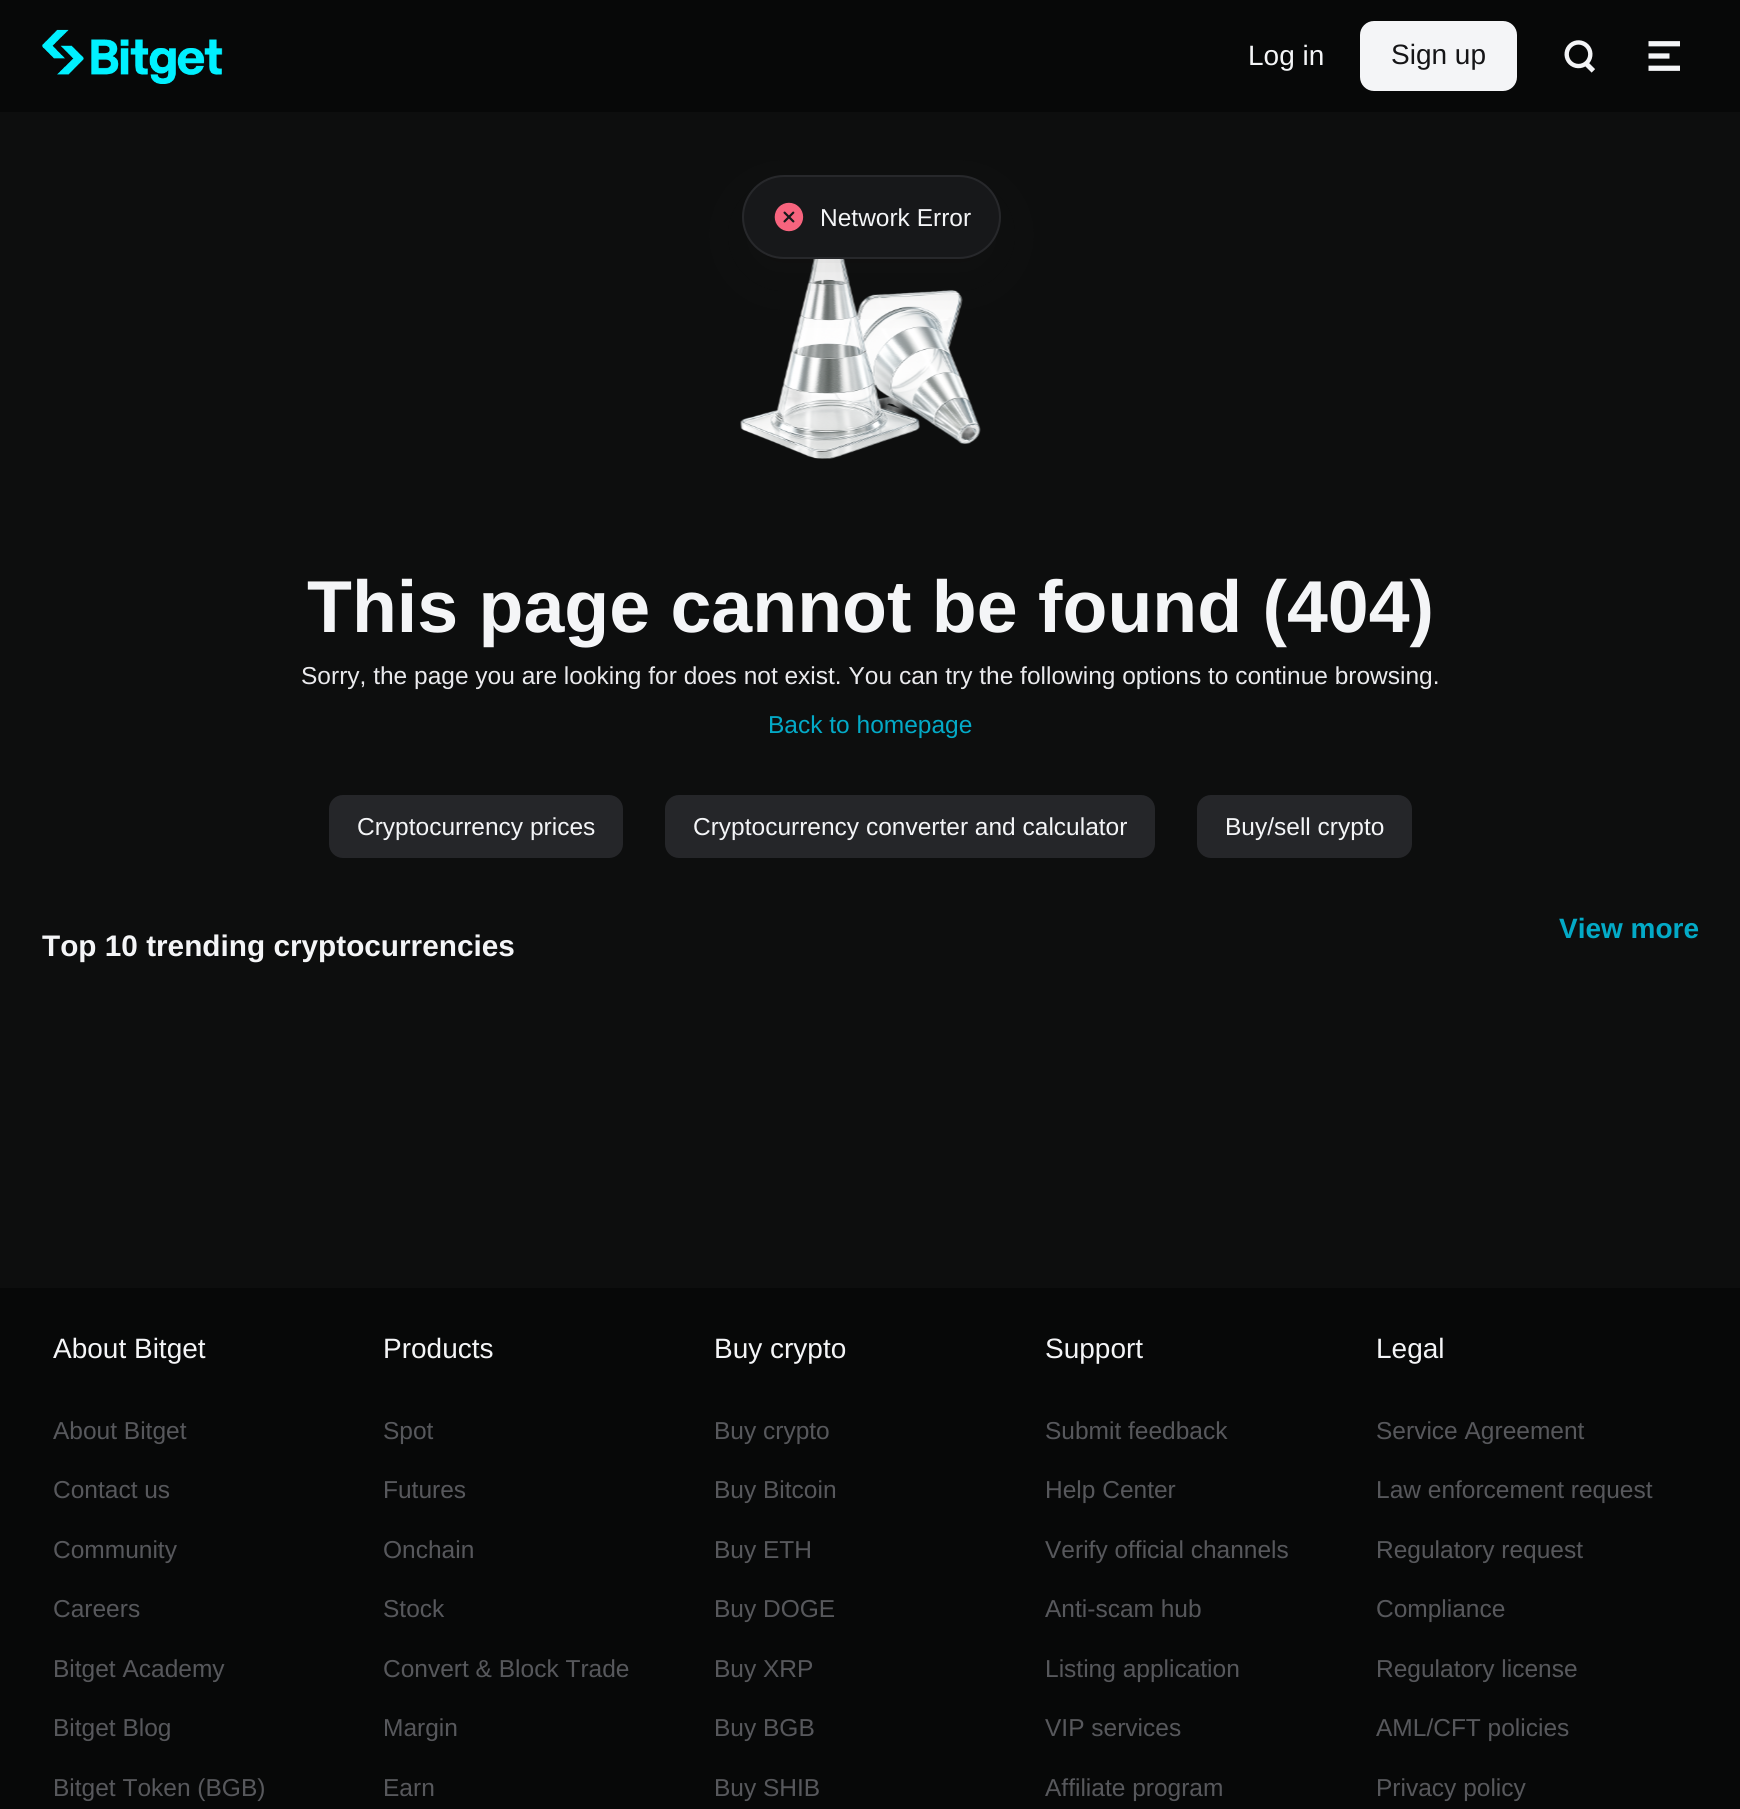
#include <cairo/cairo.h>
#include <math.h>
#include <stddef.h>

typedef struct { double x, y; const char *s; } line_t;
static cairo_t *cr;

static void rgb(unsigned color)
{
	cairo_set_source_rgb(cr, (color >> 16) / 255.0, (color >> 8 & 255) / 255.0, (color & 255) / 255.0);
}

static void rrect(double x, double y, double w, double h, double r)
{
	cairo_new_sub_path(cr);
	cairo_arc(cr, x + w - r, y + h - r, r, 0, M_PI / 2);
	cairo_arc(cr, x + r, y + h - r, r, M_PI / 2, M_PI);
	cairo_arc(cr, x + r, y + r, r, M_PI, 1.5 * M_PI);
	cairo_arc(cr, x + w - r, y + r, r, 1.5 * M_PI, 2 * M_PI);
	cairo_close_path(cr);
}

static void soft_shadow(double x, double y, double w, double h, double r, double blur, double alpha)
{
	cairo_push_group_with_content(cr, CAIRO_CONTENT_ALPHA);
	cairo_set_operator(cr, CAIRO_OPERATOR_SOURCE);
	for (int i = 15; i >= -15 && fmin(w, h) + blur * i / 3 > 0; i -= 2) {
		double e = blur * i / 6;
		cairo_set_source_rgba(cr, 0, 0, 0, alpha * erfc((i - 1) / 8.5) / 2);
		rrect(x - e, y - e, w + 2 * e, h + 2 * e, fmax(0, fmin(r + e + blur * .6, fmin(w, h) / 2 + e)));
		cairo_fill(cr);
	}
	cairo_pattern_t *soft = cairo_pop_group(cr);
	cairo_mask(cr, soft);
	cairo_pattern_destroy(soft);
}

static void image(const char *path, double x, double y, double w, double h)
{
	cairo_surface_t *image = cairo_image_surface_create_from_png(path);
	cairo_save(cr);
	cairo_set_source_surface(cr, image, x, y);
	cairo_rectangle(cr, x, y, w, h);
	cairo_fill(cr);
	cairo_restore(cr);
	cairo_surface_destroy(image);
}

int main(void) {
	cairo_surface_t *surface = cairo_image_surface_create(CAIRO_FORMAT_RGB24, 1740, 1809);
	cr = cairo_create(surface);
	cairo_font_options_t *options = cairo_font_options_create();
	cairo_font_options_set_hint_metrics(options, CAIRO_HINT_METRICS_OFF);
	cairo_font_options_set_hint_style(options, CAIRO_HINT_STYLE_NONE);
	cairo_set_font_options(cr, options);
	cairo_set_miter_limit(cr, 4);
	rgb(0x0d0e0e);
	cairo_paint(cr);
	rgb(0x070808);
	cairo_rectangle(cr, 0, 0, 1740, 112);
	cairo_fill(cr);
	image("img/1.png", 42, 29, 181, 55);
	rgb(0xf4f5f7);
	rrect(1360, 21, 157, 70, 14);
	cairo_fill(cr);
	image("img/2.png", 1564, 40, 31, 33);
	image("img/3.png", 1648, 41, 32, 30);
	image("img/4.png", 740, 259, 241, 200);
	rgb(0x252629);
	rrect(329, 795, 294, 63, 14);
	cairo_fill(cr);
	rrect(665, 795, 490, 63, 14);
	cairo_fill(cr);
	rrect(1197, 795, 215, 63, 14);
	cairo_fill(cr);
	rgb(0x070808);
	cairo_rectangle(cr, 0, 1288, 1740, 521);
	cairo_fill(cr);
	rgb(0x1f1f1f);
	soft_shadow(742, 193, 259, 84, 42, 28, 0.15);
	rgb(0x17181a);
	rrect(743, 176, 257, 82, 41);
	cairo_fill_preserve(cr);
	rgb(0x27282b);
	cairo_stroke(cr);
	image("img/5.png", 774, 202, 30, 30);
	cairo_select_font_face(cr, "Liberation Sans", CAIRO_FONT_SLANT_NORMAL, CAIRO_FONT_WEIGHT_NORMAL);
	cairo_set_font_size(cr, 28);
	rgb(0xf4f5f7);
	cairo_move_to(cr, 1248, 65);
	cairo_show_text(cr, "Log in");
	rgb(0x151517);
	cairo_move_to(cr, 1391, 64);
	cairo_show_text(cr, "Sign up");
	cairo_select_font_face(cr, "Liberation Sans", CAIRO_FONT_SLANT_NORMAL, CAIRO_FONT_WEIGHT_BOLD);
	cairo_set_font_size(cr, 73.5);
	rgb(0xf4f5f7);
	cairo_move_to(cr, 307, 632);
	cairo_show_text(cr, "This page cannot be found (404)");
	cairo_select_font_face(cr, "Liberation Sans", CAIRO_FONT_SLANT_NORMAL, CAIRO_FONT_WEIGHT_NORMAL);
	cairo_set_font_size(cr, 24.5);
	rgb(0xeaeaed);
	cairo_move_to(cr, 301, 684);
	cairo_show_text(cr, "Sorry, the page you are looking for does not exist. You can try the following options to continue browsing.");
	rgb(0x03aac7);
	cairo_move_to(cr, 768, 733);
	cairo_show_text(cr, "Back to homepage");
	rgb(0xf4f5f7);
	{
		static const line_t items[] = {
			{357, 835, "Cryptocurrency prices"},
			{693, 835, "Cryptocurrency converter and calculator"},
			{1225, 835, "Buy/sell crypto"},
		};
		for (size_t i = 0; i < sizeof items / sizeof *items; i++) {
			cairo_move_to(cr, items[i].x, items[i].y);
			cairo_show_text(cr, items[i].s);
		}
	}
	cairo_select_font_face(cr, "Liberation Sans", CAIRO_FONT_SLANT_NORMAL, CAIRO_FONT_WEIGHT_BOLD);
	cairo_set_font_size(cr, 28);
	rgb(0x03aac7);
	cairo_move_to(cr, 1559, 938);
	cairo_show_text(cr, "View more");
	cairo_set_font_size(cr, 29.75);
	rgb(0xf4f5f7);
	cairo_move_to(cr, 42, 956);
	cairo_show_text(cr, "Top 10 trending cryptocurrencies");
	cairo_select_font_face(cr, "Liberation Sans", CAIRO_FONT_SLANT_NORMAL, CAIRO_FONT_WEIGHT_NORMAL);
	cairo_set_font_size(cr, 28);
	cairo_move_to(cr, 53, 1358);
	cairo_show_text(cr, "About Bitget");
	cairo_set_font_size(cr, 24.5);
	rgb(0x57585c);
	{
		static const line_t items[] = {
			{53, 1439, "About Bitget"},
			{53, 1498, "Contact us"},
			{53, 1558, "Community"},
			{53, 1617, "Careers"},
			{53, 1677, "Bitget Academy"},
			{53, 1736, "Bitget Blog"},
			{53, 1796, "Bitget Token (BGB)"},
		};
		for (size_t i = 0; i < sizeof items / sizeof *items; i++) {
			cairo_move_to(cr, items[i].x, items[i].y);
			cairo_show_text(cr, items[i].s);
		}
	}
	cairo_set_font_size(cr, 28);
	rgb(0xf4f5f7);
	cairo_move_to(cr, 383, 1358);
	cairo_show_text(cr, "Products");
	cairo_set_font_size(cr, 24.5);
	rgb(0x57585c);
	{
		static const line_t items[] = {
			{383, 1439, "Spot"},
			{383, 1498, "Futures"},
			{383, 1558, "Onchain"},
			{383, 1617, "Stock"},
			{383, 1677, "Convert & Block Trade"},
			{383, 1736, "Margin"},
			{383, 1796, "Earn"},
		};
		for (size_t i = 0; i < sizeof items / sizeof *items; i++) {
			cairo_move_to(cr, items[i].x, items[i].y);
			cairo_show_text(cr, items[i].s);
		}
	}
	cairo_set_font_size(cr, 28);
	rgb(0xf4f5f7);
	cairo_move_to(cr, 714, 1358);
	cairo_show_text(cr, "Buy crypto");
	cairo_set_font_size(cr, 24.5);
	rgb(0x57585c);
	{
		static const line_t items[] = {
			{714, 1439, "Buy crypto"},
			{714, 1498, "Buy Bitcoin"},
			{714, 1558, "Buy ETH"},
			{714, 1617, "Buy DOGE"},
			{714, 1677, "Buy XRP"},
			{714, 1736, "Buy BGB"},
			{714, 1796, "Buy SHIB"},
		};
		for (size_t i = 0; i < sizeof items / sizeof *items; i++) {
			cairo_move_to(cr, items[i].x, items[i].y);
			cairo_show_text(cr, items[i].s);
		}
	}
	cairo_set_font_size(cr, 28);
	rgb(0xf4f5f7);
	cairo_move_to(cr, 1045, 1358);
	cairo_show_text(cr, "Support");
	cairo_set_font_size(cr, 24.5);
	rgb(0x57585c);
	{
		static const line_t items[] = {
			{1045, 1439, "Submit feedback"},
			{1045, 1498, "Help Center"},
			{1045, 1558, "Verify official channels"},
			{1045, 1617, "Anti-scam hub"},
			{1045, 1677, "Listing application"},
			{1045, 1736, "VIP services"},
			{1045, 1796, "Affiliate program"},
		};
		for (size_t i = 0; i < sizeof items / sizeof *items; i++) {
			cairo_move_to(cr, items[i].x, items[i].y);
			cairo_show_text(cr, items[i].s);
		}
	}
	cairo_set_font_size(cr, 28);
	rgb(0xf4f5f7);
	cairo_move_to(cr, 1376, 1358);
	cairo_show_text(cr, "Legal");
	cairo_set_font_size(cr, 24.5);
	rgb(0x57585c);
	{
		static const line_t items[] = {
			{1376, 1439, "Service Agreement"},
			{1376, 1498, "Law enforcement request"},
			{1376, 1558, "Regulatory request"},
			{1376, 1617, "Compliance"},
			{1376, 1677, "Regulatory license"},
			{1376, 1736, "AML/CFT policies"},
			{1376, 1796, "Privacy policy"},
		};
		for (size_t i = 0; i < sizeof items / sizeof *items; i++) {
			cairo_move_to(cr, items[i].x, items[i].y);
			cairo_show_text(cr, items[i].s);
		}
	}
	rgb(0xf4f5f7);
	cairo_move_to(cr, 820, 226);
	cairo_show_text(cr, "Network Error");
	cairo_surface_write_to_png(surface, "page.png");
	cairo_font_options_destroy(options);
	cairo_destroy(cr);
	cairo_surface_destroy(surface);
	return 0;
}
